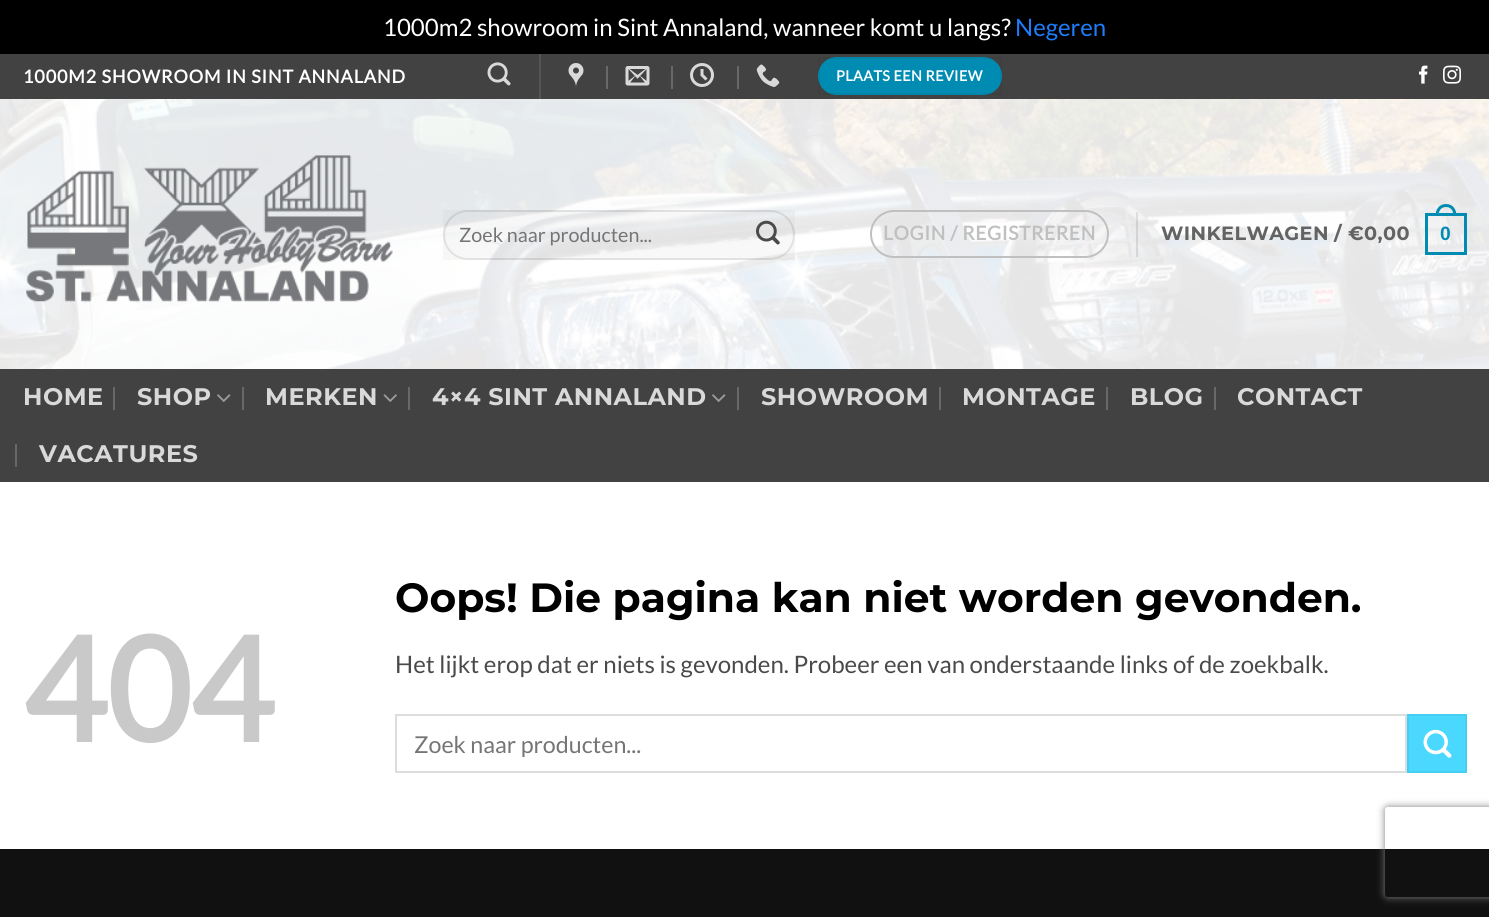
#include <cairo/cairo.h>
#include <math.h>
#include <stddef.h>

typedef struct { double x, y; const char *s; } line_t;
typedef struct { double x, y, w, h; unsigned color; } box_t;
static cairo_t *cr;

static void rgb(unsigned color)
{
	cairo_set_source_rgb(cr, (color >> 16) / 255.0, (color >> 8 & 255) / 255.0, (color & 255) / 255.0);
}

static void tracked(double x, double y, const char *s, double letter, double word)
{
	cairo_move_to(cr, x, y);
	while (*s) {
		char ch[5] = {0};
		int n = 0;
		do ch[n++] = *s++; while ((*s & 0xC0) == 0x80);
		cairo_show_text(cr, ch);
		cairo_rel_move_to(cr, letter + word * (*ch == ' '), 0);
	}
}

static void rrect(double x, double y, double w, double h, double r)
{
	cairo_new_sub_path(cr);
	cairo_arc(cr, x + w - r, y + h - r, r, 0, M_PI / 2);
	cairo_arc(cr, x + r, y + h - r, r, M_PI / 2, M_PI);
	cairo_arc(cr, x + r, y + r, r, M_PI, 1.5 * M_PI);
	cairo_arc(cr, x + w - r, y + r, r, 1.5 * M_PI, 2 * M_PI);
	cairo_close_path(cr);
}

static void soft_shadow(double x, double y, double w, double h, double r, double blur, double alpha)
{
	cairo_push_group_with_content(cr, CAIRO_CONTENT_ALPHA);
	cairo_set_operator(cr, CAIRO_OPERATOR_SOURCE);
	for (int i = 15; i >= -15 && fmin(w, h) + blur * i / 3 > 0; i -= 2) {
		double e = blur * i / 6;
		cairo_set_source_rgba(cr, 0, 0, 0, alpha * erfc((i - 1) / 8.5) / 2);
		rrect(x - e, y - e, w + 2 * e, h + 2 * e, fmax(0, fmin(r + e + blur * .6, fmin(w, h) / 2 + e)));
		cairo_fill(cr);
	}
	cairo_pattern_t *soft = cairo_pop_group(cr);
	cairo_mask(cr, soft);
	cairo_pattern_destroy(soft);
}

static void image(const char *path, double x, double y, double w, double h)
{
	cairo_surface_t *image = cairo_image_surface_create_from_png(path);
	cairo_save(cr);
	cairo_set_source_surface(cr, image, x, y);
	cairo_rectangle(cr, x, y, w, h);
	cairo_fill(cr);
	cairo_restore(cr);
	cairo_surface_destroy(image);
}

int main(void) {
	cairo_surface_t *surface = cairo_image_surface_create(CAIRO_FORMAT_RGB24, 1489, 917);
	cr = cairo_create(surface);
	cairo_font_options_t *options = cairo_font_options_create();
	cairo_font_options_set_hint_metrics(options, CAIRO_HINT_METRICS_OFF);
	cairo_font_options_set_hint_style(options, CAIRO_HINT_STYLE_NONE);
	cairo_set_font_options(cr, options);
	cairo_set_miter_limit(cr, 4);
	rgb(0xffffff);
	cairo_paint(cr);
	rgb(0x000000);
	cairo_rectangle(cr, 0, 0, 1489, 54);
	cairo_fill(cr);
	rgb(0x424242);
	cairo_rectangle(cr, 0, 54, 1489, 45);
	cairo_fill(cr);
	image("img/1.png", 487, 62, 24, 24);
	rgb(0x555555);
	cairo_rectangle(cr, 539, 54, 2, 45);
	cairo_fill(cr);
	image("img/2.png", 568, 63, 16, 24);
	rgb(0x686868);
	cairo_rectangle(cr, 606, 66, 2, 23);
	cairo_fill(cr);
	image("img/3.png", 625, 66, 25, 20);
	cairo_rectangle(cr, 671, 66, 2, 23);
	cairo_fill(cr);
	image("img/4.png", 690, 63, 24, 24);
	cairo_rectangle(cr, 737, 66, 2, 23);
	cairo_fill(cr);
	image("img/5.png", 756, 64, 24, 23);
	rgb(0x008cb2);
	rrect(818, 57, 184, 38, 19);
	cairo_fill(cr);
	cairo_rectangle(cr, 819, 58, 182, 36);
	cairo_set_source_rgba(cr, 0, 0, 0, 0.05);
	cairo_stroke(cr);
	image("img/6.png", 1419, 65, 9, 19);
	image("img/7.png", 1443, 65, 18, 19);
	image("img/8.png", 0, 99, 1489, 270);
	image("img/9.png", 26, 155, 367, 147);
	cairo_set_source_rgba(cr, 0, 0, 0, 0.03);
	cairo_rectangle(cr, 443, 210, 352, 50);
	cairo_fill(cr);
	rrect(444, 211, 350, 48, 24);
	cairo_set_source_rgba(cr, 0, 0, 0, 0.09);
	cairo_stroke(cr);
	image("img/10.png", 756, 220, 24, 25);
	rrect(871, 211, 237, 46, 23);
	rgb(0xc0c0c0);
	cairo_stroke(cr);
	cairo_set_source_rgba(cr, 0, 0, 0, 0.1);
	cairo_rectangle(cr, 1136, 212, 2, 45);
	cairo_fill(cr);
	cairo_rectangle(cr, 1426.5, 214.5, 39, 39);
	rgb(0x008cb2);
	cairo_set_line_width(cr, 3);
	cairo_stroke(cr);
	cairo_set_fill_rule(cr, CAIRO_FILL_RULE_EVEN_ODD);
	cairo_new_path(cr);
	cairo_move_to(cr, 1446, 204);
	cairo_curve_to(cr, 1453, 204, 1456.5, 209.5, 1456.5, 216);
	cairo_line_to(cr, 1435.5, 216);
	cairo_curve_to(cr, 1435.5, 209.5, 1439, 204, 1446, 204);
	cairo_close_path(cr);
	cairo_move_to(cr, 1446, 207);
	cairo_curve_to(cr, 1451.5, 207, 1453.5, 211.5, 1453.5, 216);
	cairo_line_to(cr, 1438.5, 216);
	cairo_curve_to(cr, 1438.5, 211.5, 1440.5, 207, 1446, 207);
	cairo_close_path(cr);
	cairo_fill(cr);
	rgb(0x424242);
	cairo_rectangle(cr, 0, 369, 1489, 113);
	cairo_fill(cr);
	rgb(0x686868);
	cairo_rectangle(cr, 113, 387, 2, 23);
	cairo_fill(cr);
	image("img/11.png", 217, 394, 14, 8);
	cairo_rectangle(cr, 242, 387, 2, 23);
	cairo_fill(cr);
	image("img/12.png", 383, 394, 14, 8);
	cairo_rectangle(cr, 408, 387, 2, 23);
	cairo_fill(cr);
	image("img/11.png", 712, 394, 14, 8);
	{
		static const box_t items[] = {
			{737, 387, 2, 23, 0x686868},
			{939, 387, 2, 23, 0x686868},
			{1106, 387, 2, 23, 0x686868},
			{1214, 387, 2, 23, 0x686868},
			{15, 444, 2, 23, 0x686868},
		};
		for (size_t i = 0; i < sizeof items / sizeof *items; i++) {
			rgb(items[i].color);
			cairo_rectangle(cr, items[i].x, items[i].y, items[i].w, items[i].h);
			cairo_fill(cr);
		}
	}
	cairo_rectangle(cr, 396, 715, 1010, 57);
	rgb(0xdddddd);
	cairo_set_line_width(cr, 2);
	cairo_stroke(cr);
	rgb(0x4ad8ff);
	cairo_rectangle(cr, 1408, 715, 58, 57);
	cairo_fill_preserve(cr);
	rgb(0x46cdf2);
	cairo_stroke(cr);
	image("img/13.png", 1423, 729, 29, 29);
	rgb(0x111111);
	cairo_rectangle(cr, 0, 849, 1489, 68);
	cairo_fill(cr);
	cairo_save(cr);
	cairo_new_path(cr);
	cairo_move_to(cr, 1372, 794);
	cairo_line_to(cr, 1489, 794);
	cairo_line_to(cr, 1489, 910);
	cairo_line_to(cr, 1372, 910);
	cairo_close_path(cr);
	cairo_move_to(cr, 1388, 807);
	cairo_line_to(cr, 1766, 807);
	cairo_curve_to(cr, 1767.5, 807, 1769, 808.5, 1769, 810);
	cairo_line_to(cr, 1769, 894);
	cairo_curve_to(cr, 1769, 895.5, 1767.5, 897, 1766, 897);
	cairo_line_to(cr, 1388, 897);
	cairo_curve_to(cr, 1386.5, 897, 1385, 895.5, 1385, 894);
	cairo_line_to(cr, 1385, 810);
	cairo_curve_to(cr, 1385, 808.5, 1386.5, 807, 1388, 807);
	cairo_close_path(cr);
	cairo_clip(cr);
	rgb(0x808080);
	soft_shadow(1385, 807, 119, 90, 3, 4, 1);
	cairo_restore(cr);
	cairo_select_font_face(cr, "Lato", CAIRO_FONT_SLANT_NORMAL, CAIRO_FONT_WEIGHT_NORMAL);
	cairo_set_font_size(cr, 24);
	rgb(0xffffff);
	cairo_move_to(cr, 383, 36);
	cairo_show_text(cr, "1000m2 showroom in Sint Annaland, wanneer komt u langs?");
	rgb(0x1e7dfa);
	cairo_move_to(cr, 1015, 36);
	cairo_show_text(cr, "Negeren");
	cairo_select_font_face(cr, "Lato", CAIRO_FONT_SLANT_NORMAL, CAIRO_FONT_WEIGHT_BOLD);
	cairo_set_font_size(cr, 18);
	rgb(0xffffff);
	tracked(23, 83, "1000M2 SHOWROOM IN SINT ANNALAND", 0.9, 0);
	cairo_set_font_size(cr, 14.4);
	tracked(836, 81, "PLAATS EEN REVIEW", 0.4, 0);
	cairo_select_font_face(cr, "Lato", CAIRO_FONT_SLANT_NORMAL, CAIRO_FONT_WEIGHT_NORMAL);
	cairo_set_font_size(cr, 19.75);
	rgb(0x757575);
	cairo_move_to(cr, 459, 242);
	cairo_show_text(cr, "Zoek naar producten...");
	cairo_select_font_face(cr, "Lato", CAIRO_FONT_SLANT_NORMAL, CAIRO_FONT_WEIGHT_BOLD);
	cairo_set_font_size(cr, 19.25);
	rgb(0xc0c0c0);
	tracked(883, 240, "LOGIN / REGISTREREN", 0.6, 0);
	cairo_select_font_face(cr, "Montserrat Thin", CAIRO_FONT_SLANT_NORMAL, CAIRO_FONT_WEIGHT_NORMAL);
	rgb(0x636364);
	{
		static const line_t items[] = {
			{1161, 240, "WINKELWAGEN"},
			{1334, 240, "/"},
			{1348, 240, "€"},
			{1364, 240, "0,00"},
		};
		for (size_t i = 0; i < sizeof items / sizeof *items; i++) {
			tracked(items[i].x, items[i].y, items[i].s, 0.4, 0);
		}
	}
	cairo_select_font_face(cr, "Liberation Sans", CAIRO_FONT_SLANT_NORMAL, CAIRO_FONT_WEIGHT_BOLD);
	rgb(0x008cb2);
	tracked(1440, 240, "0", 0.4, 0);
	cairo_select_font_face(cr, "Montserrat Thin", CAIRO_FONT_SLANT_NORMAL, CAIRO_FONT_WEIGHT_NORMAL);
	cairo_set_font_size(cr, 24);
	rgb(0xd9d9d9);
	{
		static const line_t items[] = {
			{23, 405, "HOME"},
			{137, 405, "SHOP"},
			{265, 405, "MERKEN"},
			{432, 405, "4×4 SINT ANNALAND"},
			{761, 405, "SHOWROOM"},
			{962, 405, "MONTAGE"},
			{1130, 405, "BLOG"},
			{1237, 405, "CONTACT"},
			{39, 462, "VACATURES"},
		};
		for (size_t i = 0; i < sizeof items / sizeof *items; i++) {
			tracked(items[i].x, items[i].y, items[i].s, 0.5, 0);
		}
	}
	cairo_select_font_face(cr, "Lato", CAIRO_FONT_SLANT_NORMAL, CAIRO_FONT_WEIGHT_BOLD);
	cairo_set_font_size(cr, 144);
	rgb(0xc9c9c9);
	cairo_move_to(cr, 23, 742);
	cairo_show_text(cr, "404");
	cairo_select_font_face(cr, "Montserrat Thin", CAIRO_FONT_SLANT_NORMAL, CAIRO_FONT_WEIGHT_NORMAL);
	cairo_set_font_size(cr, 40.8);
	rgb(0x000000);
	cairo_move_to(cr, 395, 612);
	cairo_show_text(cr, "Oops! Die pagina kan niet worden gevonden.");
	cairo_select_font_face(cr, "Lato", CAIRO_FONT_SLANT_NORMAL, CAIRO_FONT_WEIGHT_NORMAL);
	cairo_set_font_size(cr, 24);
	rgb(0x4a4a4a);
	cairo_move_to(cr, 395, 673);
	cairo_show_text(cr, "Het lijkt erop dat er niets is gevonden. Probeer een van onderstaande links of de zoekbalk.");
	cairo_set_font_size(cr, 23.25);
	rgb(0x757575);
	cairo_move_to(cr, 414, 753);
	cairo_show_text(cr, "Zoek naar producten...");
	cairo_surface_write_to_png(surface, "page.png");
	cairo_font_options_destroy(options);
	cairo_destroy(cr);
	cairo_surface_destroy(surface);
	return 0;
}
